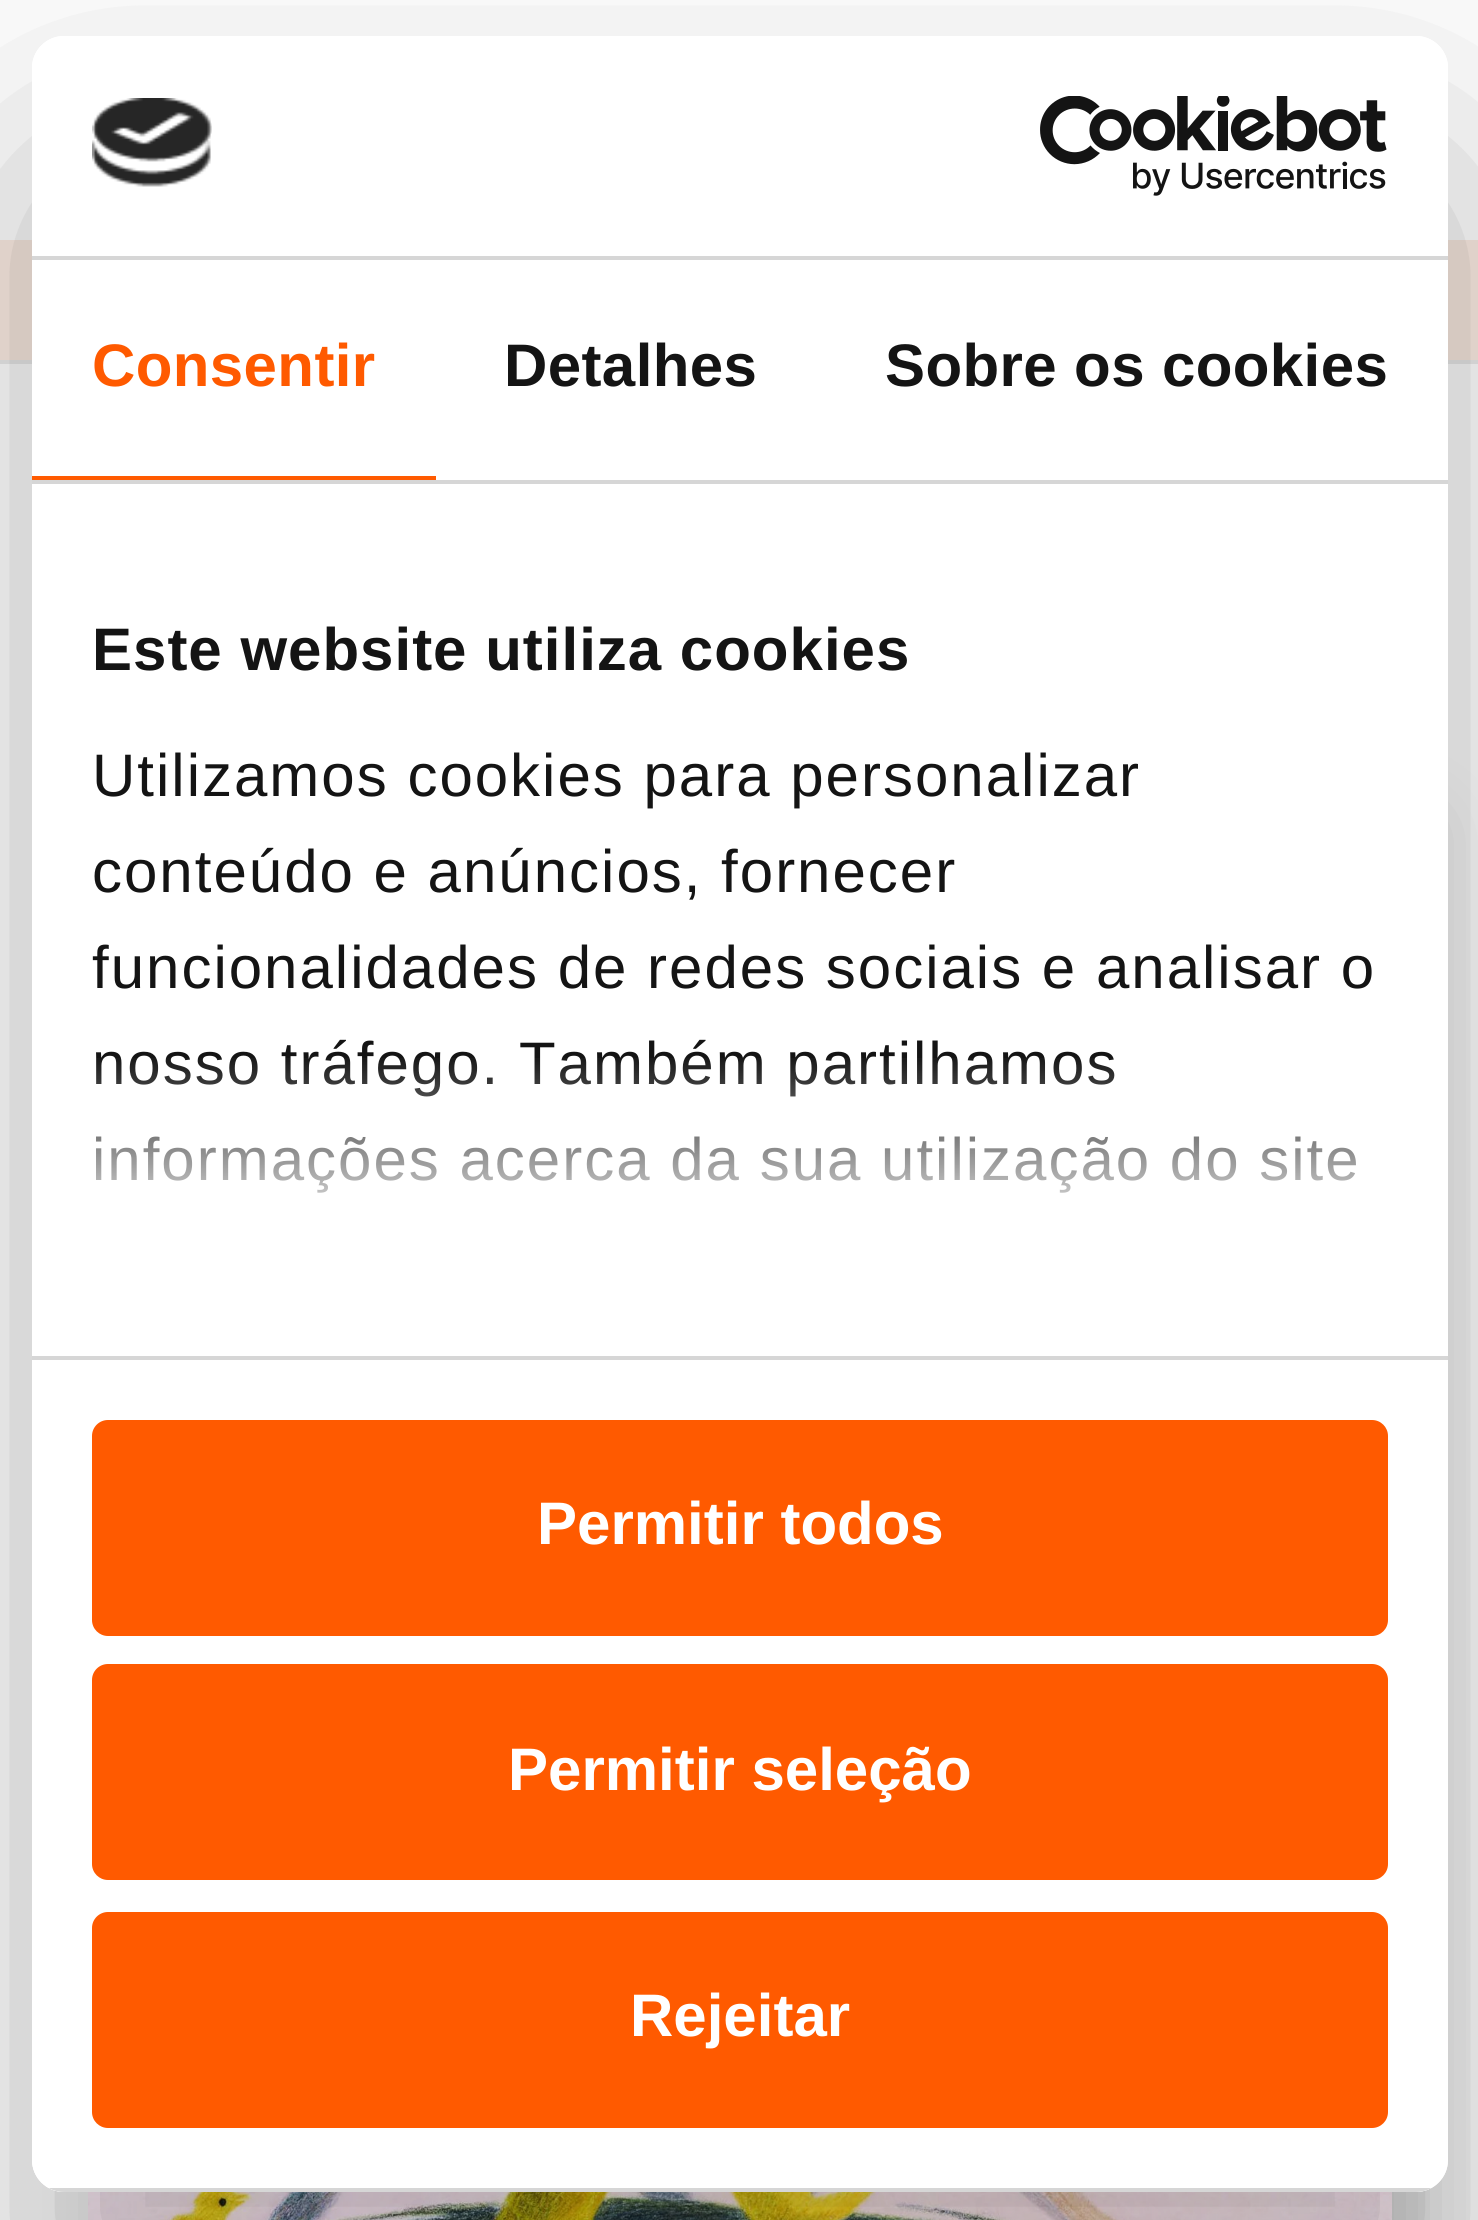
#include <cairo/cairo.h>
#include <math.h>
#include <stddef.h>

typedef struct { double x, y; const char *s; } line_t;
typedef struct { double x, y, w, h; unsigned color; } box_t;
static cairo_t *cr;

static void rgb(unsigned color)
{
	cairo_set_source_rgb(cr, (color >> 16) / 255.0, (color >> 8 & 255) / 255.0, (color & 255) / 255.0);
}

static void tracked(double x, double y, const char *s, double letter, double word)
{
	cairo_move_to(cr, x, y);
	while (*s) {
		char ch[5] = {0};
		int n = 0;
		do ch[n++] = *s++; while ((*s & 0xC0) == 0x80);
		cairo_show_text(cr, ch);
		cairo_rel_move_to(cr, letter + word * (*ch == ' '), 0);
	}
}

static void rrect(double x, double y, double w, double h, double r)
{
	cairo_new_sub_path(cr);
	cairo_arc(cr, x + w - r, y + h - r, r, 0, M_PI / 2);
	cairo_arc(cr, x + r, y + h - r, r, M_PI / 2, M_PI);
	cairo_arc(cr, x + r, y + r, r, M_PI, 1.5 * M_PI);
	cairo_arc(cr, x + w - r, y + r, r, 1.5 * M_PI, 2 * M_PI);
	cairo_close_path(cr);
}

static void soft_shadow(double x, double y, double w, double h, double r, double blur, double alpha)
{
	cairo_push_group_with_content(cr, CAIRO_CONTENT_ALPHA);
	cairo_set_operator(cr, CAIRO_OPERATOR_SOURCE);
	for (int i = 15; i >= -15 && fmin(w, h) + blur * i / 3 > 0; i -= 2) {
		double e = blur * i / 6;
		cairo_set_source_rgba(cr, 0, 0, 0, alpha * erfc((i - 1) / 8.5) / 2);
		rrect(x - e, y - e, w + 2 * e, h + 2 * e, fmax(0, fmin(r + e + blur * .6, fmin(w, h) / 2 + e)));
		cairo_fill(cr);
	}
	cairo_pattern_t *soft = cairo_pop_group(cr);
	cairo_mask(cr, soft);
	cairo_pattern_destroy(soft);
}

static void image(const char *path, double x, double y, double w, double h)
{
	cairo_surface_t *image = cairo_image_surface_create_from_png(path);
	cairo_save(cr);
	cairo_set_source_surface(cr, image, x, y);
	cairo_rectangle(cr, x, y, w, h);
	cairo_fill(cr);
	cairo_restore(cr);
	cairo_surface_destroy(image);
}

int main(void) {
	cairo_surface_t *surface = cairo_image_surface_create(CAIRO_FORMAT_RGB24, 1478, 2220);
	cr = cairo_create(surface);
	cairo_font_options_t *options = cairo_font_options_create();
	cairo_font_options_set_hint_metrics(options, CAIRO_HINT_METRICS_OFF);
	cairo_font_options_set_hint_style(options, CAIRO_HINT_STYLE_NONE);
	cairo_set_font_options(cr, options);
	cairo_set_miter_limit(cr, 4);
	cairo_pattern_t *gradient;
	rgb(0xffffff);
	cairo_paint(cr);
	rgb(0xebebeb);
	cairo_rectangle(cr, 0, 360, 1478, 4);
	cairo_fill(cr);
	rgb(0xfcece3);
	cairo_rectangle(cr, 0, 240, 1478, 120);
	cairo_fill(cr);
	rgb(0xd4d4d4);
	soft_shadow(120, 824, 1304, 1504, 0, 36, 1);
	image("img/1.png", 88, 2192, 1304, 28);
	cairo_save(cr);
	cairo_set_fill_rule(cr, CAIRO_FILL_RULE_EVEN_ODD);
	cairo_new_path(cr);
	cairo_move_to(cr, 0, 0);
	cairo_line_to(cr, 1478, 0);
	cairo_line_to(cr, 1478, 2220);
	cairo_line_to(cr, 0, 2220);
	cairo_close_path(cr);
	cairo_move_to(cr, 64, 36);
	cairo_line_to(cr, 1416, 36);
	cairo_curve_to(cr, 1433.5, 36, 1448, 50.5, 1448, 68);
	cairo_line_to(cr, 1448, 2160);
	cairo_curve_to(cr, 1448, 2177.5, 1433.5, 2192, 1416, 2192);
	cairo_line_to(cr, 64, 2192);
	cairo_curve_to(cr, 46.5, 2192, 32, 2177.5, 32, 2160);
	cairo_line_to(cr, 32, 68);
	cairo_curve_to(cr, 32, 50.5, 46.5, 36, 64, 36);
	cairo_close_path(cr);
	cairo_clip(cr);
	rgb(0x000000);
	soft_shadow(32, 164, 1416, 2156, 32, 136, 0.3);
	cairo_restore(cr);
	rgb(0xffffff);
	rrect(32, 36, 1416, 2156, 32);
	cairo_fill(cr);
	rgb(0xd6d6d6);
	cairo_rectangle(cr, 32, 256, 1416, 4);
	cairo_fill(cr);
	image("img/2.png", 92, 98, 120, 89);
	image("img/3.png", 1040, 96, 347, 100);
	{
		static const box_t items[] = {
			{32, 480, 1416, 4, 0xd6d6d6},
			{32, 476, 404, 4, 0xff5a00},
			{32, 1356, 1416, 4, 0xd6d6d6},
		};
		for (size_t i = 0; i < sizeof items / sizeof *items; i++) {
			rgb(items[i].color);
			cairo_rectangle(cr, items[i].x, items[i].y, items[i].w, items[i].h);
			cairo_fill(cr);
		}
	}
	cairo_save(cr);
	rrect(32, 36, 1416, 2156, 32);
	cairo_clip(cr);
	cairo_rectangle(cr, 48, 2188, 1384, 4);
	cairo_fill(cr);
	cairo_restore(cr);
	rgb(0xff5a00);
	rrect(92, 1420, 1296, 216, 16);
	cairo_fill(cr);
	rrect(92, 1664, 1296, 216, 16);
	cairo_fill(cr);
	rrect(92, 1912, 1296, 216, 16);
	cairo_fill(cr);
	cairo_select_font_face(cr, "Liberation Sans", CAIRO_FONT_SLANT_NORMAL, CAIRO_FONT_WEIGHT_BOLD);
	cairo_set_font_size(cr, 60);
	tracked(92, 386, "Consentir", 0.4, 0);
	rgb(0x141414);
	tracked(504, 386, "Detalhes", 0.4, 0);
	tracked(885, 386, "Sobre os cookies", 0.4, 0);
	tracked(92, 670, "Este website utiliza cookies", 1, 0);
	cairo_select_font_face(cr, "Liberation Sans", CAIRO_FONT_SLANT_NORMAL, CAIRO_FONT_WEIGHT_NORMAL);
	{
		static const line_t items[] = {
			{92, 796, "Utilizamos cookies para personalizar"},
			{92, 892, "conteúdo e anúncios, fornecer"},
			{92, 988, "funcionalidades de redes sociais e analisar o"},
			{92, 1084, "nosso tráfego. Também partilhamos"},
			{92, 1180, "informações acerca da sua utilização do site"},
		};
		for (size_t i = 0; i < sizeof items / sizeof *items; i++) {
			tracked(items[i].x, items[i].y, items[i].s, 2, 0);
		}
	}
	gradient = cairo_pattern_create_linear(714, 1354, 714, 1054);
	cairo_pattern_add_color_stop_rgba(gradient, 0, 1, 1, 1, 1);
	cairo_pattern_add_color_stop_rgba(gradient, 0.5, 1, 1, 1, 0.8);
	cairo_pattern_add_color_stop_rgba(gradient, 1, 1, 1, 1, 0);
	cairo_set_source(cr, gradient);
	cairo_pattern_destroy(gradient);
	cairo_rectangle(cr, 96, 1058, 1260, 135);
	cairo_fill(cr);
	cairo_select_font_face(cr, "Liberation Sans", CAIRO_FONT_SLANT_NORMAL, CAIRO_FONT_WEIGHT_BOLD);
	rgb(0xffffff);
	{
		static const line_t items[] = {
			{537, 1544, "Permitir todos"},
			{508, 1790, "Permitir seleção"},
			{630, 2036, "Rejeitar"},
		};
		for (size_t i = 0; i < sizeof items / sizeof *items; i++) {
			cairo_move_to(cr, items[i].x, items[i].y);
			cairo_show_text(cr, items[i].s);
		}
	}
	cairo_surface_write_to_png(surface, "page.png");
	cairo_font_options_destroy(options);
	cairo_destroy(cr);
	cairo_surface_destroy(surface);
	return 0;
}
